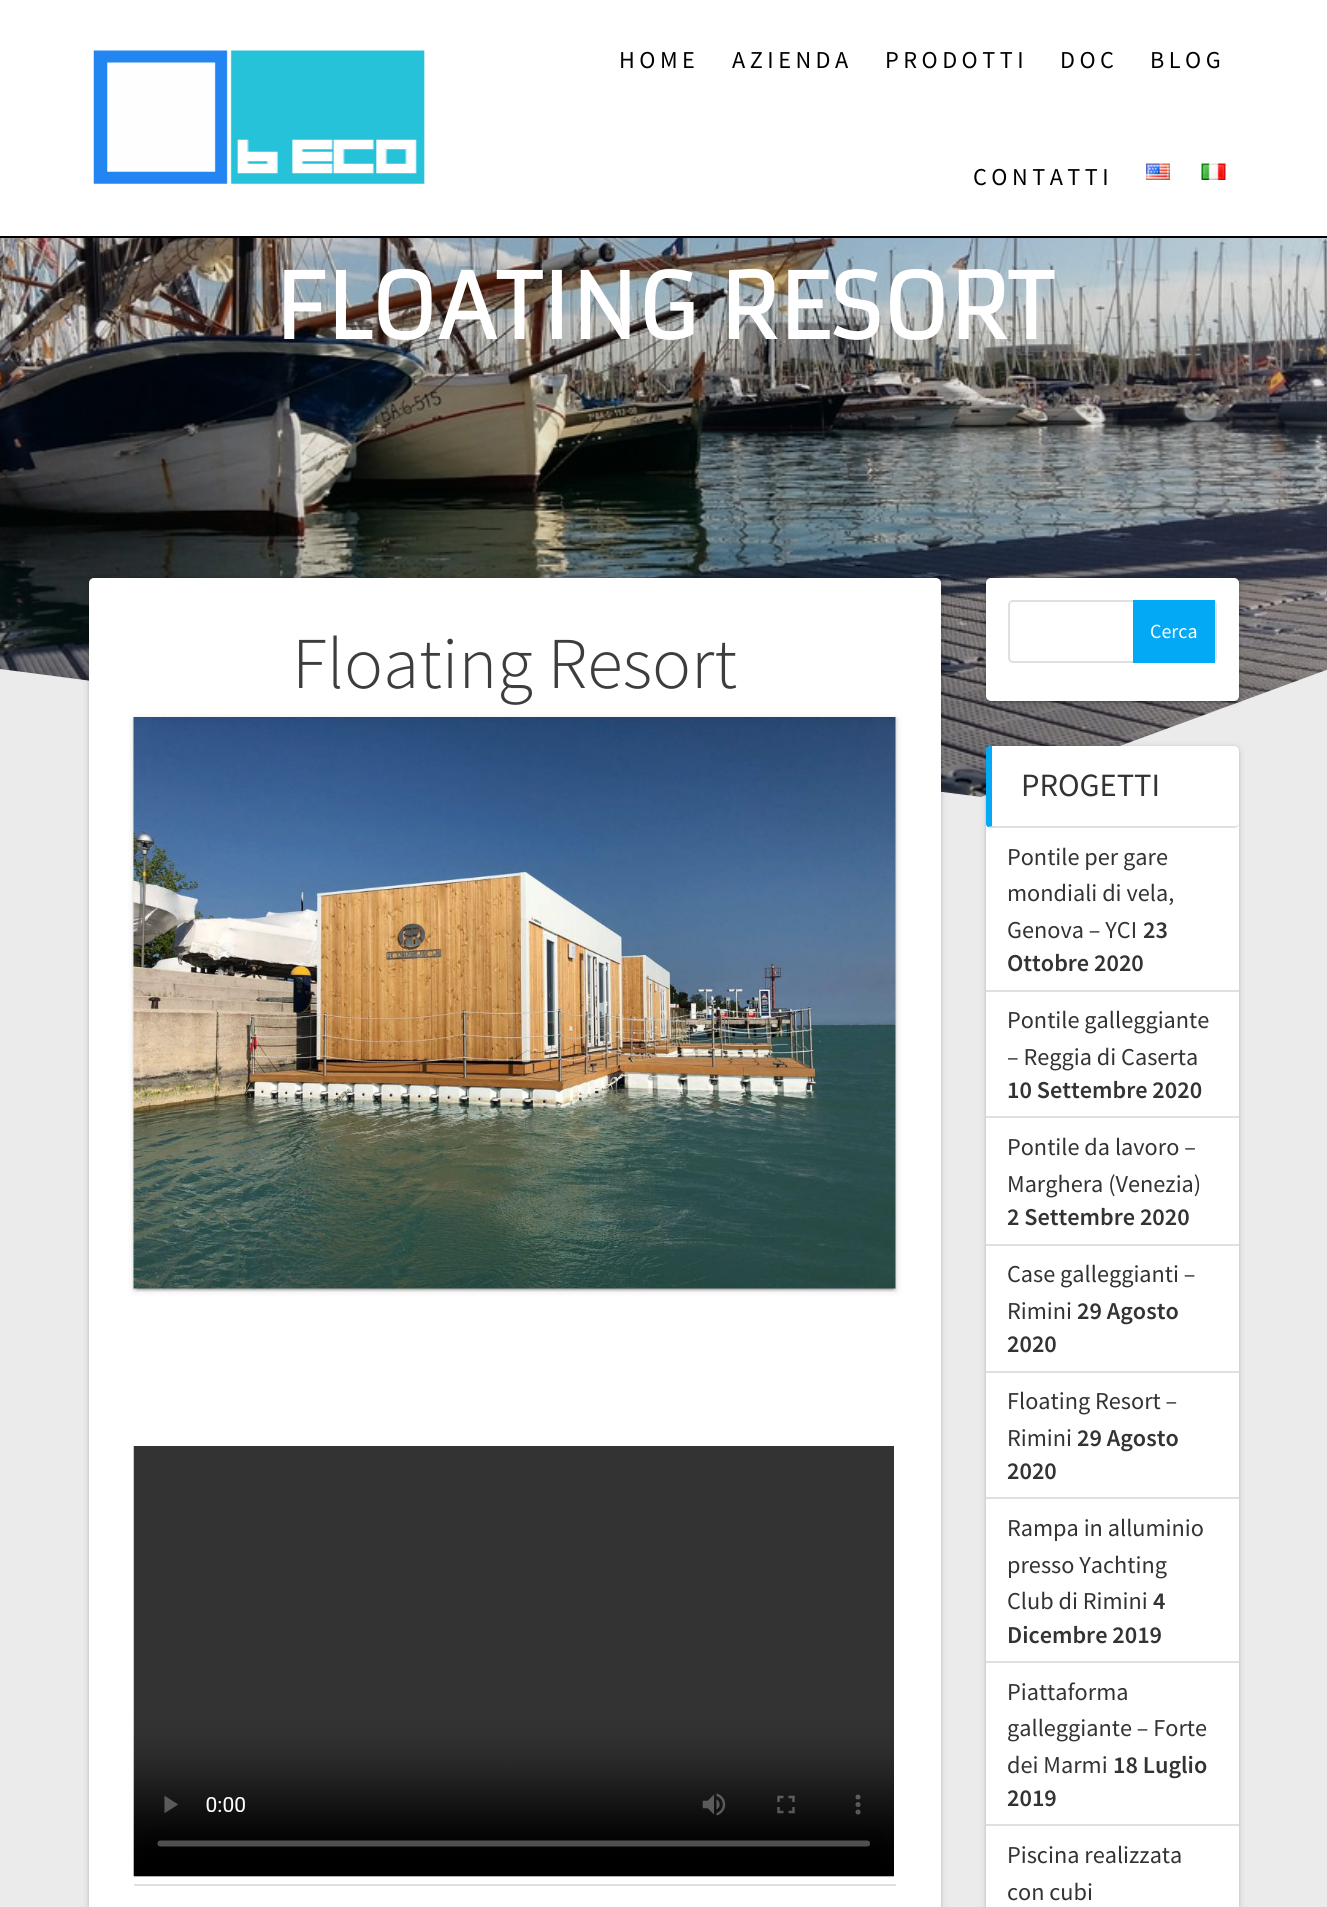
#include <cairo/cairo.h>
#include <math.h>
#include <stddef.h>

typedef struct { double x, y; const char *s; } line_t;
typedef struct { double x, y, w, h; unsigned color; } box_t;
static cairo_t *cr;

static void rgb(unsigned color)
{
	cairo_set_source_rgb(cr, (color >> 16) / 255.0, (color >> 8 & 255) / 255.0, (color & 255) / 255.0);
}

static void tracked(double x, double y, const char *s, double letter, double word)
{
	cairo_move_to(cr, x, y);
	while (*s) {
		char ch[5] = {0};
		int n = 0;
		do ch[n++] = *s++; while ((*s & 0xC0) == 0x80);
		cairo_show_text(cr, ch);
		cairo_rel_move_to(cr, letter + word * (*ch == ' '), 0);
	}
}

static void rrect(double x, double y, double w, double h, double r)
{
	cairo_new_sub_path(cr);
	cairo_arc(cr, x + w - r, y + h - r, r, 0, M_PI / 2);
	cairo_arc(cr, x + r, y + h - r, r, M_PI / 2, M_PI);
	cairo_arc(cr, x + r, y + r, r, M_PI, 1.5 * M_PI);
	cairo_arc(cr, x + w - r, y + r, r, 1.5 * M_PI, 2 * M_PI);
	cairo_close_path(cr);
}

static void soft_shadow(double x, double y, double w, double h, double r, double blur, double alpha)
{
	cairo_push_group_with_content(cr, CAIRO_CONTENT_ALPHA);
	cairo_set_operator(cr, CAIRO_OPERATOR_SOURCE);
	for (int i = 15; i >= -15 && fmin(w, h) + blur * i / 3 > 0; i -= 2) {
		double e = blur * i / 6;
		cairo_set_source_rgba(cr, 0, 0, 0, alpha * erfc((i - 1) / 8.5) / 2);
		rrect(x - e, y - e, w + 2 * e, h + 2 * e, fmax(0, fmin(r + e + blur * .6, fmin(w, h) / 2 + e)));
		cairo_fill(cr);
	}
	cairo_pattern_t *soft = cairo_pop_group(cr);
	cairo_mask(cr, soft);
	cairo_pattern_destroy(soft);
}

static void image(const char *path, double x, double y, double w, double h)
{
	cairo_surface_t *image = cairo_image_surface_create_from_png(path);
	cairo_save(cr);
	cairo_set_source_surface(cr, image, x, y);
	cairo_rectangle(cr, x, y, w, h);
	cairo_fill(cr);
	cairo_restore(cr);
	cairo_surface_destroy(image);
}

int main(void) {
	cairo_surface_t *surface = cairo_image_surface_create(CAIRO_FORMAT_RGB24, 1327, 1907);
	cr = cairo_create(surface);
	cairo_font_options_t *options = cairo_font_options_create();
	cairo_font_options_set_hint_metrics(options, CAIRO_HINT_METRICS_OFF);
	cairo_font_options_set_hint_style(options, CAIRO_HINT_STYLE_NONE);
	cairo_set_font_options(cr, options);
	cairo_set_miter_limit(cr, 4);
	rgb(0xffffff);
	cairo_paint(cr);
	rgb(0x000000);
	cairo_rectangle(cr, 0, 236, 1327, 2);
	cairo_fill(cr);
	image("img/1.png", 93, 50, 332, 134);
	image("img/2.png", 1146, 163, 24, 17);
	image("img/3.png", 1201, 163, 25, 17);
	image("img/4.png", 0, 238, 1327, 559);
	cairo_set_source_rgba(cr, 0, 0, 0, 0.1);
	cairo_rectangle(cr, 0, 238, 1327, 559);
	cairo_fill(cr);
	rgb(0xebebeb);
	cairo_new_path(cr);
	cairo_move_to(cr, 981, 797);
	cairo_line_to(cr, 0, 669);
	cairo_line_to(cr, 0, 804);
	cairo_line_to(cr, 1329, 804);
	cairo_line_to(cr, 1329, 669);
	cairo_close_path(cr);
	cairo_fill(cr);
	cairo_rectangle(cr, 0, 804, 1327, 1103);
	cairo_fill(cr);
	rgb(0x000000);
	soft_shadow(89, 579, 852, 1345, 5, 4, 0.12);
	soft_shadow(89, 579, 852, 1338, 5, 1.5, 0.14);
	rgb(0xffffff);
	rrect(89, 578, 852, 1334, 5);
	cairo_fill(cr);
	rgb(0xe0e0e0);
	cairo_rectangle(cr, 134, 1884, 762, 2);
	cairo_fill(cr);
	rgb(0x000000);
	soft_shadow(134, 719, 762, 571, 0, 4, 0.12);
	soft_shadow(137, 725, 756, 565, 0, 1, 0.2);
	soft_shadow(134, 719, 762, 571, 0, 1.5, 0.14);
	image("img/5.png", 133, 717, 763, 572);
	image("img/6.png", 133, 1446, 761, 431);
	soft_shadow(986, 579, 253, 123, 5, 4, 0.12);
	soft_shadow(989, 585, 247, 117, 1.5, 1, 0.2);
	soft_shadow(986, 579, 253, 123, 5, 1.5, 0.14);
	rgb(0xffffff);
	rrect(986, 578, 253, 123, 5);
	cairo_fill(cr);
	rrect(1009, 601, 207, 61, 4);
	rgb(0xe0e0e0);
	cairo_stroke(cr);
	rgb(0x03a9f4);
	cairo_rectangle(cr, 1133, 600, 82, 63);
	cairo_fill(cr);
	rgb(0x000000);
	soft_shadow(986, 747, 253, 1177, 5, 4, 0.12);
	soft_shadow(986, 747, 253, 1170, 5, 1.5, 0.14);
	rgb(0xffffff);
	rrect(986, 746, 253, 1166, 5);
	cairo_fill(cr);
	rgb(0xe0e0e0);
	cairo_new_path(cr);
	cairo_move_to(cr, 990, 828);
	cairo_line_to(cr, 1234, 828);
	cairo_curve_to(cr, 1237, 828, 1239, 826, 1239, 824);
	cairo_curve_to(cr, 1239, 825, 1237, 826, 1234, 826);
	cairo_line_to(cr, 994, 826);
	cairo_line_to(cr, 988, 827);
	cairo_close_path(cr);
	cairo_fill(cr);
	rgb(0x03a9f4);
	cairo_new_path(cr);
	cairo_move_to(cr, 990, 746);
	cairo_line_to(cr, 992, 746);
	cairo_line_to(cr, 992, 826);
	cairo_line_to(cr, 994, 826);
	cairo_line_to(cr, 988, 827);
	cairo_curve_to(cr, 987, 827, 986, 825, 986, 824);
	cairo_line_to(cr, 986, 750);
	cairo_curve_to(cr, 986, 748, 988, 746, 990, 746);
	cairo_close_path(cr);
	cairo_fill(cr);
	{
		static const box_t items[] = {
			{986, 990, 253, 2, 0xe0e0e0},
			{986, 1116, 253, 2, 0xe0e0e0},
			{986, 1244, 253, 2, 0xe0e0e0},
			{986, 1371, 253, 2, 0xe0e0e0},
			{986, 1497, 253, 2, 0xe0e0e0},
			{986, 1661, 253, 2, 0xe0e0e0},
			{986, 1824, 253, 2, 0xe0e0e0},
		};
		for (size_t i = 0; i < sizeof items / sizeof *items; i++) {
			rgb(items[i].color);
			cairo_rectangle(cr, items[i].x, items[i].y, items[i].w, items[i].h);
			cairo_fill(cr);
		}
	}
	cairo_select_font_face(cr, "Source Sans Pro", CAIRO_FONT_SLANT_NORMAL, CAIRO_FONT_WEIGHT_NORMAL);
	cairo_set_font_size(cr, 24.25);
	rgb(0x000000);
	{
		static const line_t items[] = {
			{619, 68, "HOME"},
			{732, 68, "AZIENDA"},
			{885, 68, "PRODOTTI"},
			{1060, 68, "DOC"},
			{1150, 68, "BLOG"},
			{973, 185, "CONTATTI"},
		};
		for (size_t i = 0; i < sizeof items / sizeof *items; i++) {
			tracked(items[i].x, items[i].y, items[i].s, 4.5, 0);
		}
	}
	cairo_select_font_face(cr, "Armata", CAIRO_FONT_SLANT_NORMAL, CAIRO_FONT_WEIGHT_BOLD);
	cairo_set_font_size(cr, 89);
	rgb(0xffffff);
	cairo_move_to(cr, 274, 339);
	cairo_show_text(cr, "FLOATING RESORT");
	cairo_select_font_face(cr, "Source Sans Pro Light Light", CAIRO_FONT_SLANT_NORMAL, CAIRO_FONT_WEIGHT_NORMAL);
	cairo_set_font_size(cr, 73);
	rgb(0x3d3d3d);
	cairo_move_to(cr, 292, 688);
	cairo_show_text(cr, "Floating Resort");
	cairo_select_font_face(cr, "Source Sans Pro", CAIRO_FONT_SLANT_NORMAL, CAIRO_FONT_WEIGHT_NORMAL);
	cairo_set_font_size(cr, 20);
	rgb(0xffffff);
	cairo_move_to(cr, 1150, 638);
	cairo_show_text(cr, "Cerca");
	cairo_set_font_size(cr, 32.5);
	rgb(0x333333);
	cairo_move_to(cr, 1021, 796);
	cairo_show_text(cr, "PROGETTI");
	cairo_set_font_size(cr, 24.25);
	{
		static const line_t items[] = {
			{1007, 865, "Pontile per gare"},
			{1007, 901, "mondiali di vela,"},
			{1007, 938, "Genova – YCI"},
		};
		for (size_t i = 0; i < sizeof items / sizeof *items; i++) {
			cairo_move_to(cr, items[i].x, items[i].y);
			cairo_show_text(cr, items[i].s);
		}
	}
	cairo_select_font_face(cr, "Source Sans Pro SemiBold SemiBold", CAIRO_FONT_SLANT_NORMAL, CAIRO_FONT_WEIGHT_NORMAL);
	cairo_move_to(cr, 1143, 938);
	cairo_show_text(cr, "23");
	cairo_move_to(cr, 1007, 971);
	cairo_show_text(cr, "Ottobre 2020");
	cairo_select_font_face(cr, "Source Sans Pro", CAIRO_FONT_SLANT_NORMAL, CAIRO_FONT_WEIGHT_NORMAL);
	cairo_move_to(cr, 1007, 1028);
	cairo_show_text(cr, "Pontile galleggiante");
	cairo_move_to(cr, 1007, 1065);
	cairo_show_text(cr, "– Reggia di Caserta");
	cairo_select_font_face(cr, "Source Sans Pro SemiBold SemiBold", CAIRO_FONT_SLANT_NORMAL, CAIRO_FONT_WEIGHT_NORMAL);
	cairo_move_to(cr, 1007, 1098);
	cairo_show_text(cr, "10 Settembre 2020");
	cairo_select_font_face(cr, "Source Sans Pro", CAIRO_FONT_SLANT_NORMAL, CAIRO_FONT_WEIGHT_NORMAL);
	cairo_move_to(cr, 1007, 1155);
	cairo_show_text(cr, "Pontile da lavoro –");
	cairo_move_to(cr, 1007, 1192);
	cairo_show_text(cr, "Marghera (Venezia)");
	cairo_select_font_face(cr, "Source Sans Pro SemiBold SemiBold", CAIRO_FONT_SLANT_NORMAL, CAIRO_FONT_WEIGHT_NORMAL);
	cairo_move_to(cr, 1007, 1225);
	cairo_show_text(cr, "2 Settembre 2020");
	cairo_select_font_face(cr, "Source Sans Pro", CAIRO_FONT_SLANT_NORMAL, CAIRO_FONT_WEIGHT_NORMAL);
	cairo_move_to(cr, 1007, 1282);
	cairo_show_text(cr, "Case galleggianti –");
	cairo_move_to(cr, 1007, 1319);
	cairo_show_text(cr, "Rimini");
	cairo_select_font_face(cr, "Source Sans Pro SemiBold SemiBold", CAIRO_FONT_SLANT_NORMAL, CAIRO_FONT_WEIGHT_NORMAL);
	cairo_move_to(cr, 1077, 1319);
	cairo_show_text(cr, "29 Agosto");
	cairo_move_to(cr, 1007, 1352);
	cairo_show_text(cr, "2020");
	cairo_select_font_face(cr, "Source Sans Pro", CAIRO_FONT_SLANT_NORMAL, CAIRO_FONT_WEIGHT_NORMAL);
	cairo_move_to(cr, 1007, 1409);
	cairo_show_text(cr, "Floating Resort –");
	cairo_move_to(cr, 1007, 1446);
	cairo_show_text(cr, "Rimini");
	cairo_select_font_face(cr, "Source Sans Pro SemiBold SemiBold", CAIRO_FONT_SLANT_NORMAL, CAIRO_FONT_WEIGHT_NORMAL);
	cairo_move_to(cr, 1077, 1446);
	cairo_show_text(cr, "29 Agosto");
	cairo_move_to(cr, 1007, 1479);
	cairo_show_text(cr, "2020");
	cairo_select_font_face(cr, "Source Sans Pro", CAIRO_FONT_SLANT_NORMAL, CAIRO_FONT_WEIGHT_NORMAL);
	{
		static const line_t items[] = {
			{1007, 1536, "Rampa in alluminio"},
			{1007, 1573, "presso Yachting"},
			{1007, 1609, "Club di Rimini"},
		};
		for (size_t i = 0; i < sizeof items / sizeof *items; i++) {
			cairo_move_to(cr, items[i].x, items[i].y);
			cairo_show_text(cr, items[i].s);
		}
	}
	cairo_select_font_face(cr, "Source Sans Pro SemiBold SemiBold", CAIRO_FONT_SLANT_NORMAL, CAIRO_FONT_WEIGHT_NORMAL);
	cairo_move_to(cr, 1153, 1609);
	cairo_show_text(cr, "4");
	cairo_move_to(cr, 1007, 1643);
	cairo_show_text(cr, "Dicembre 2019");
	cairo_select_font_face(cr, "Source Sans Pro", CAIRO_FONT_SLANT_NORMAL, CAIRO_FONT_WEIGHT_NORMAL);
	{
		static const line_t items[] = {
			{1007, 1700, "Piattaforma"},
			{1007, 1736, "galleggiante – Forte"},
			{1007, 1773, "dei Marmi"},
		};
		for (size_t i = 0; i < sizeof items / sizeof *items; i++) {
			cairo_move_to(cr, items[i].x, items[i].y);
			cairo_show_text(cr, items[i].s);
		}
	}
	cairo_select_font_face(cr, "Source Sans Pro SemiBold SemiBold", CAIRO_FONT_SLANT_NORMAL, CAIRO_FONT_WEIGHT_NORMAL);
	cairo_move_to(cr, 1113, 1773);
	cairo_show_text(cr, "18 Luglio");
	cairo_move_to(cr, 1007, 1806);
	cairo_show_text(cr, "2019");
	cairo_select_font_face(cr, "Source Sans Pro", CAIRO_FONT_SLANT_NORMAL, CAIRO_FONT_WEIGHT_NORMAL);
	cairo_move_to(cr, 1007, 1863);
	cairo_show_text(cr, "Piscina realizzata");
	cairo_move_to(cr, 1007, 1900);
	cairo_show_text(cr, "con cubi");
	cairo_surface_write_to_png(surface, "page.png");
	cairo_font_options_destroy(options);
	cairo_destroy(cr);
	cairo_surface_destroy(surface);
	return 0;
}
